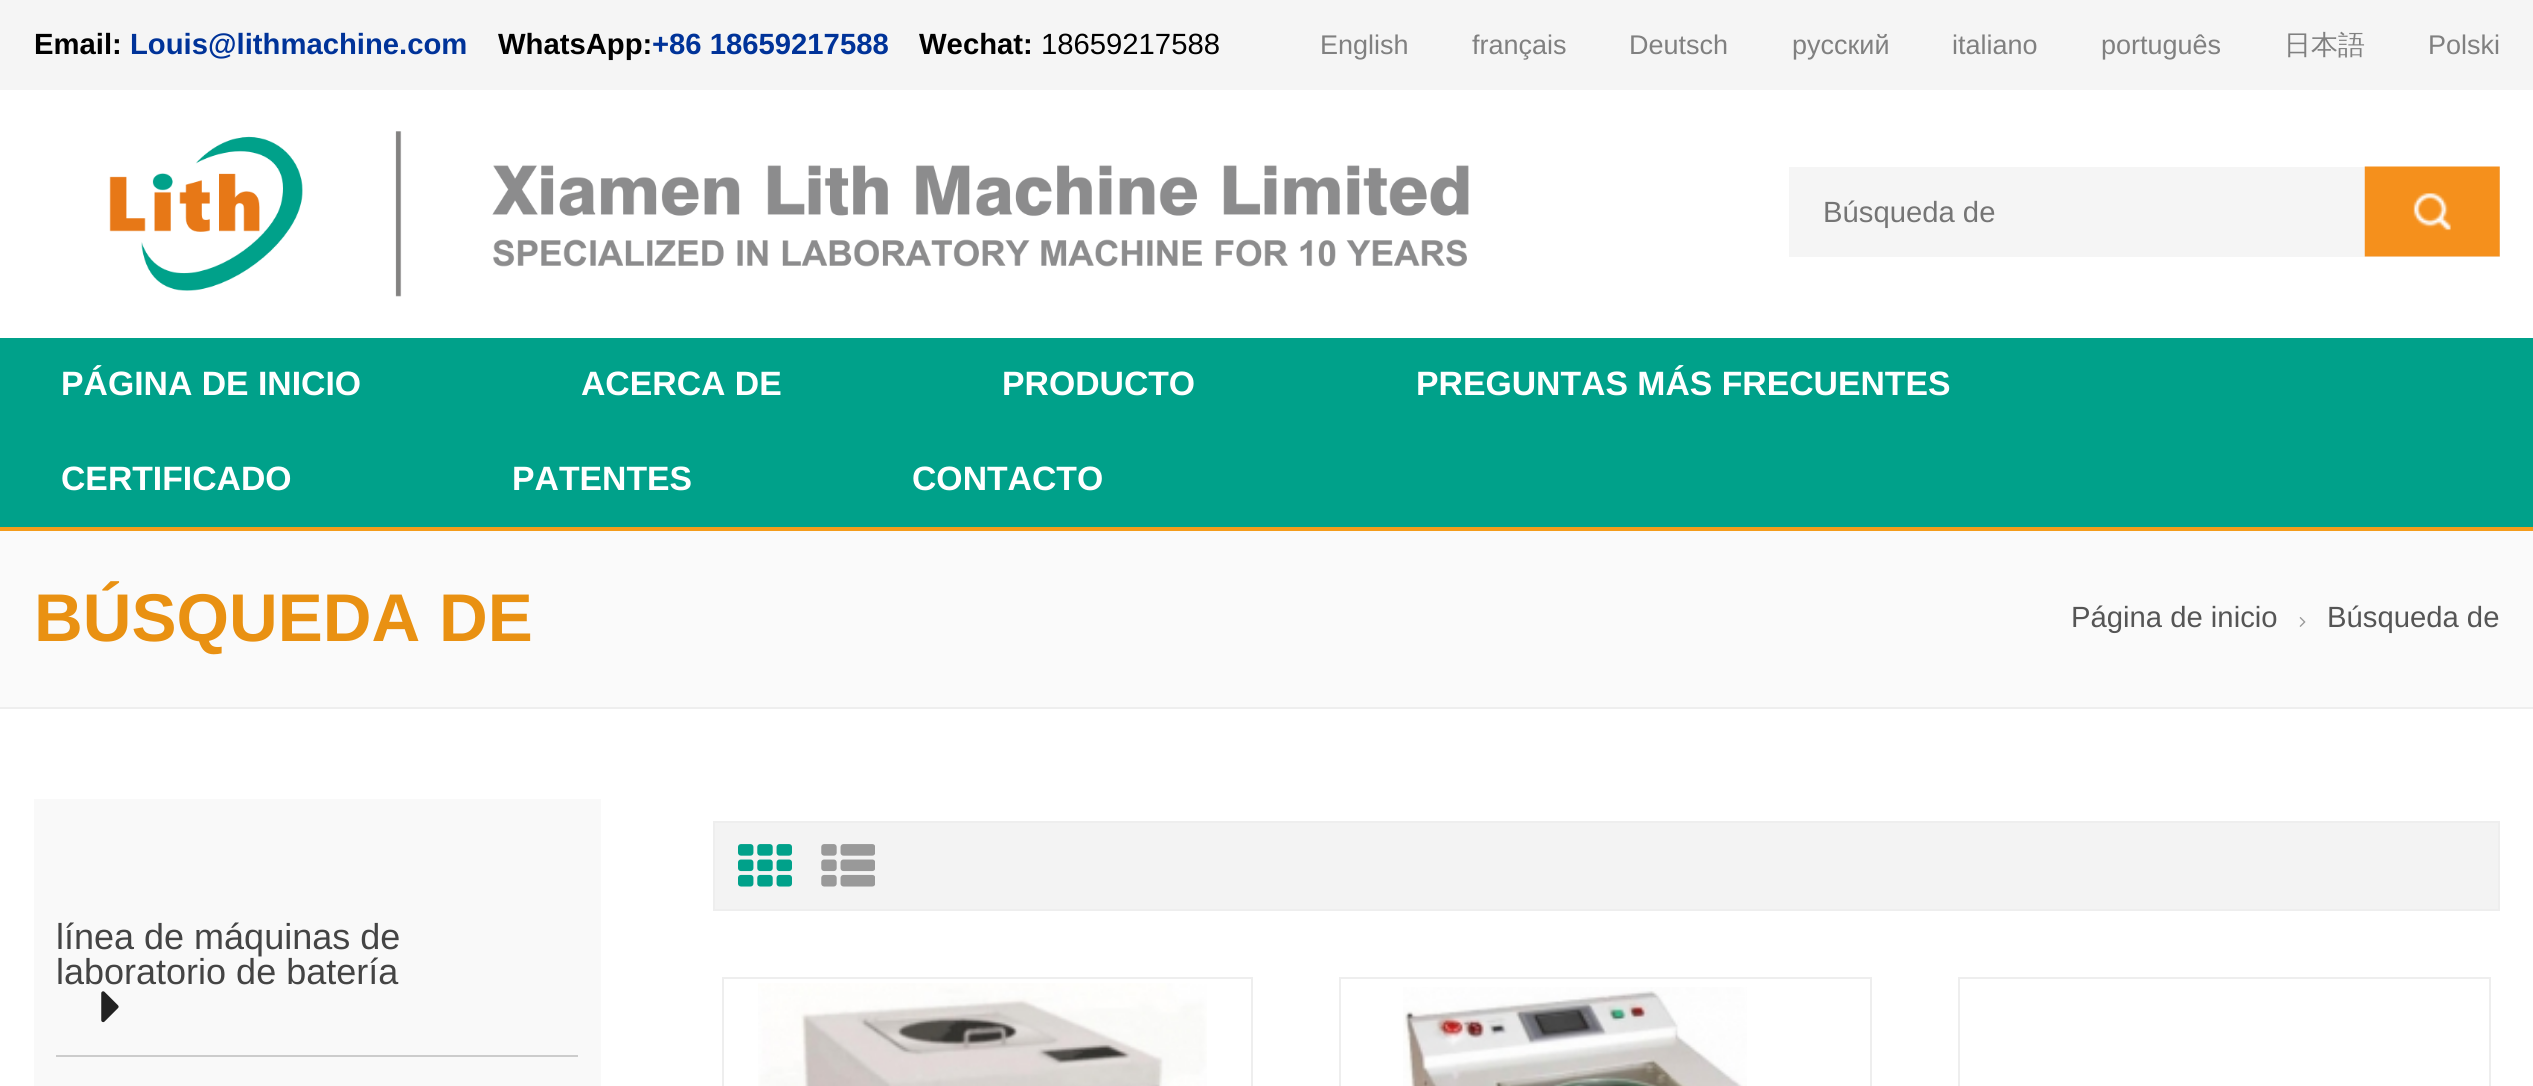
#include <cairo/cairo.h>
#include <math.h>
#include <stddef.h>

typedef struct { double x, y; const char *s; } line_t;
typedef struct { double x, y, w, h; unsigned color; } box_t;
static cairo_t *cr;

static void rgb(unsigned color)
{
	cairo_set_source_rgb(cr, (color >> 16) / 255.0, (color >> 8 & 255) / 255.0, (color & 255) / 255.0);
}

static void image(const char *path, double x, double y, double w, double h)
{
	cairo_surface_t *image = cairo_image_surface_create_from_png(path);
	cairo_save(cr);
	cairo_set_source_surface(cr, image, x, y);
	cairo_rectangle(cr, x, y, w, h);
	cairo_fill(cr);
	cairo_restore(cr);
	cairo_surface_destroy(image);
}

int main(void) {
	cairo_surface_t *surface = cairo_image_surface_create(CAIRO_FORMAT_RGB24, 2533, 1086);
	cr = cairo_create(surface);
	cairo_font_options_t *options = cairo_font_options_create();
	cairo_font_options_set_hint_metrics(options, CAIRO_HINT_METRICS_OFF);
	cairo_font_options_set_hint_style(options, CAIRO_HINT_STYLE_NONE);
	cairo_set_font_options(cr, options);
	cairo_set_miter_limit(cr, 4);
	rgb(0xffffff);
	cairo_paint(cr);
	rgb(0xf5f5f5);
	cairo_rectangle(cr, 0, 0, 2533, 90);
	cairo_fill(cr);
	image("img/1.png", 109, 131, 1360, 166);
	cairo_rectangle(cr, 1789, 167, 711, 90);
	cairo_fill(cr);
	image("img/2.png", 2364, 166, 136, 91);
	{
		static const box_t items[] = {
			{0, 338, 2533, 189, 0x00a18a},
			{0, 527, 2533, 4, 0xf49c1b},
			{0, 531, 2533, 176, 0xfafafa},
			{0, 707, 2533, 2, 0xeeeeee},
		};
		for (size_t i = 0; i < sizeof items / sizeof *items; i++) {
			rgb(items[i].color);
			cairo_rectangle(cr, items[i].x, items[i].y, items[i].w, items[i].h);
			cairo_fill(cr);
		}
	}
	image("img/3.png", 2299, 617, 7, 10);
	rgb(0xf9f9f9);
	cairo_rectangle(cr, 34, 799, 567, 287);
	cairo_fill(cr);
	rgb(0xcccccc);
	cairo_rectangle(cr, 56, 1055, 522, 2);
	cairo_fill(cr);
	image("img/4.png", 101, 991, 18, 32);
	rgb(0xf3f3f3);
	cairo_rectangle(cr, 714, 822, 1785, 88);
	cairo_fill_preserve(cr);
	rgb(0xeeeeee);
	cairo_stroke(cr);
	image("img/5.png", 738, 844, 54, 43);
	image("img/6.png", 821, 844, 54, 43);
	cairo_rectangle(cr, 723, 978, 529, 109);
	cairo_stroke(cr);
	image("img/7.png", 758, 983, 449, 103);
	cairo_rectangle(cr, 1340, 978, 531, 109);
	cairo_stroke(cr);
	image("img/8.png", 1403, 987, 344, 99);
	cairo_rectangle(cr, 1959, 978, 531, 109);
	cairo_stroke(cr);
	cairo_select_font_face(cr, "Liberation Sans", CAIRO_FONT_SLANT_NORMAL, CAIRO_FONT_WEIGHT_BOLD);
	cairo_set_font_size(cr, 29.25);
	rgb(0x000000);
	cairo_move_to(cr, 34, 54);
	cairo_show_text(cr, "Email:");
	rgb(0x003399);
	cairo_move_to(cr, 130, 54);
	cairo_show_text(cr, "Louis@lithmachine.com");
	rgb(0x000000);
	cairo_move_to(cr, 498, 54);
	cairo_show_text(cr, "WhatsApp:");
	rgb(0x003399);
	cairo_move_to(cr, 652, 54);
	cairo_show_text(cr, "+86 18659217588");
	rgb(0x000000);
	cairo_move_to(cr, 919, 54);
	cairo_show_text(cr, "Wechat:");
	cairo_select_font_face(cr, "Liberation Sans", CAIRO_FONT_SLANT_NORMAL, CAIRO_FONT_WEIGHT_NORMAL);
	cairo_move_to(cr, 1041, 54);
	cairo_show_text(cr, "18659217588");
	cairo_set_font_size(cr, 27);
	rgb(0x808080);
	{
		static const line_t items[] = {
			{1320, 54, "English"},
			{1472, 54, "français"},
			{1629, 54, "Deutsch"},
			{1792, 54, "русский"},
			{1952, 54, "italiano"},
			{2101, 54, "português"},
		};
		for (size_t i = 0; i < sizeof items / sizeof *items; i++) {
			cairo_move_to(cr, items[i].x, items[i].y);
			cairo_show_text(cr, items[i].s);
		}
	}
	cairo_select_font_face(cr, "WenQuanYi Zen Hei Medium", CAIRO_FONT_SLANT_NORMAL, CAIRO_FONT_WEIGHT_NORMAL);
	cairo_move_to(cr, 2284, 54);
	cairo_show_text(cr, "日本語");
	cairo_select_font_face(cr, "Liberation Sans", CAIRO_FONT_SLANT_NORMAL, CAIRO_FONT_WEIGHT_NORMAL);
	cairo_move_to(cr, 2428, 54);
	cairo_show_text(cr, "Polski");
	cairo_set_font_size(cr, 29.25);
	rgb(0x757575);
	cairo_move_to(cr, 1823, 222);
	cairo_show_text(cr, "Búsqueda de");
	cairo_select_font_face(cr, "Liberation Sans", CAIRO_FONT_SLANT_NORMAL, CAIRO_FONT_WEIGHT_BOLD);
	cairo_set_font_size(cr, 33.75);
	rgb(0xffffff);
	{
		static const line_t items[] = {
			{61, 395, "PÁGINA DE INICIO"},
			{581, 395, "ACERCA DE"},
			{1002, 395, "PRODUCTO"},
			{1416, 395, "PREGUNTAS MÁS FRECUENTES"},
			{61, 490, "CERTIFICADO"},
			{512, 490, "PATENTES"},
			{912, 490, "CONTACTO"},
		};
		for (size_t i = 0; i < sizeof items / sizeof *items; i++) {
			cairo_move_to(cr, items[i].x, items[i].y);
			cairo_show_text(cr, items[i].s);
		}
	}
	cairo_set_font_size(cr, 67.5);
	rgb(0xe99112);
	cairo_move_to(cr, 34, 641);
	cairo_show_text(cr, "BÚSQUEDA DE");
	cairo_select_font_face(cr, "Liberation Sans", CAIRO_FONT_SLANT_NORMAL, CAIRO_FONT_WEIGHT_NORMAL);
	cairo_set_font_size(cr, 29.25);
	rgb(0x555555);
	cairo_move_to(cr, 2071, 627);
	cairo_show_text(cr, "Página de inicio");
	cairo_move_to(cr, 2327, 627);
	cairo_show_text(cr, "Búsqueda de");
	cairo_set_font_size(cr, 36);
	rgb(0x444444);
	cairo_move_to(cr, 56, 949);
	cairo_show_text(cr, "línea de máquinas de");
	cairo_move_to(cr, 56, 984);
	cairo_show_text(cr, "laboratorio de batería");
	cairo_surface_write_to_png(surface, "page.png");
	cairo_font_options_destroy(options);
	cairo_destroy(cr);
	cairo_surface_destroy(surface);
	return 0;
}
